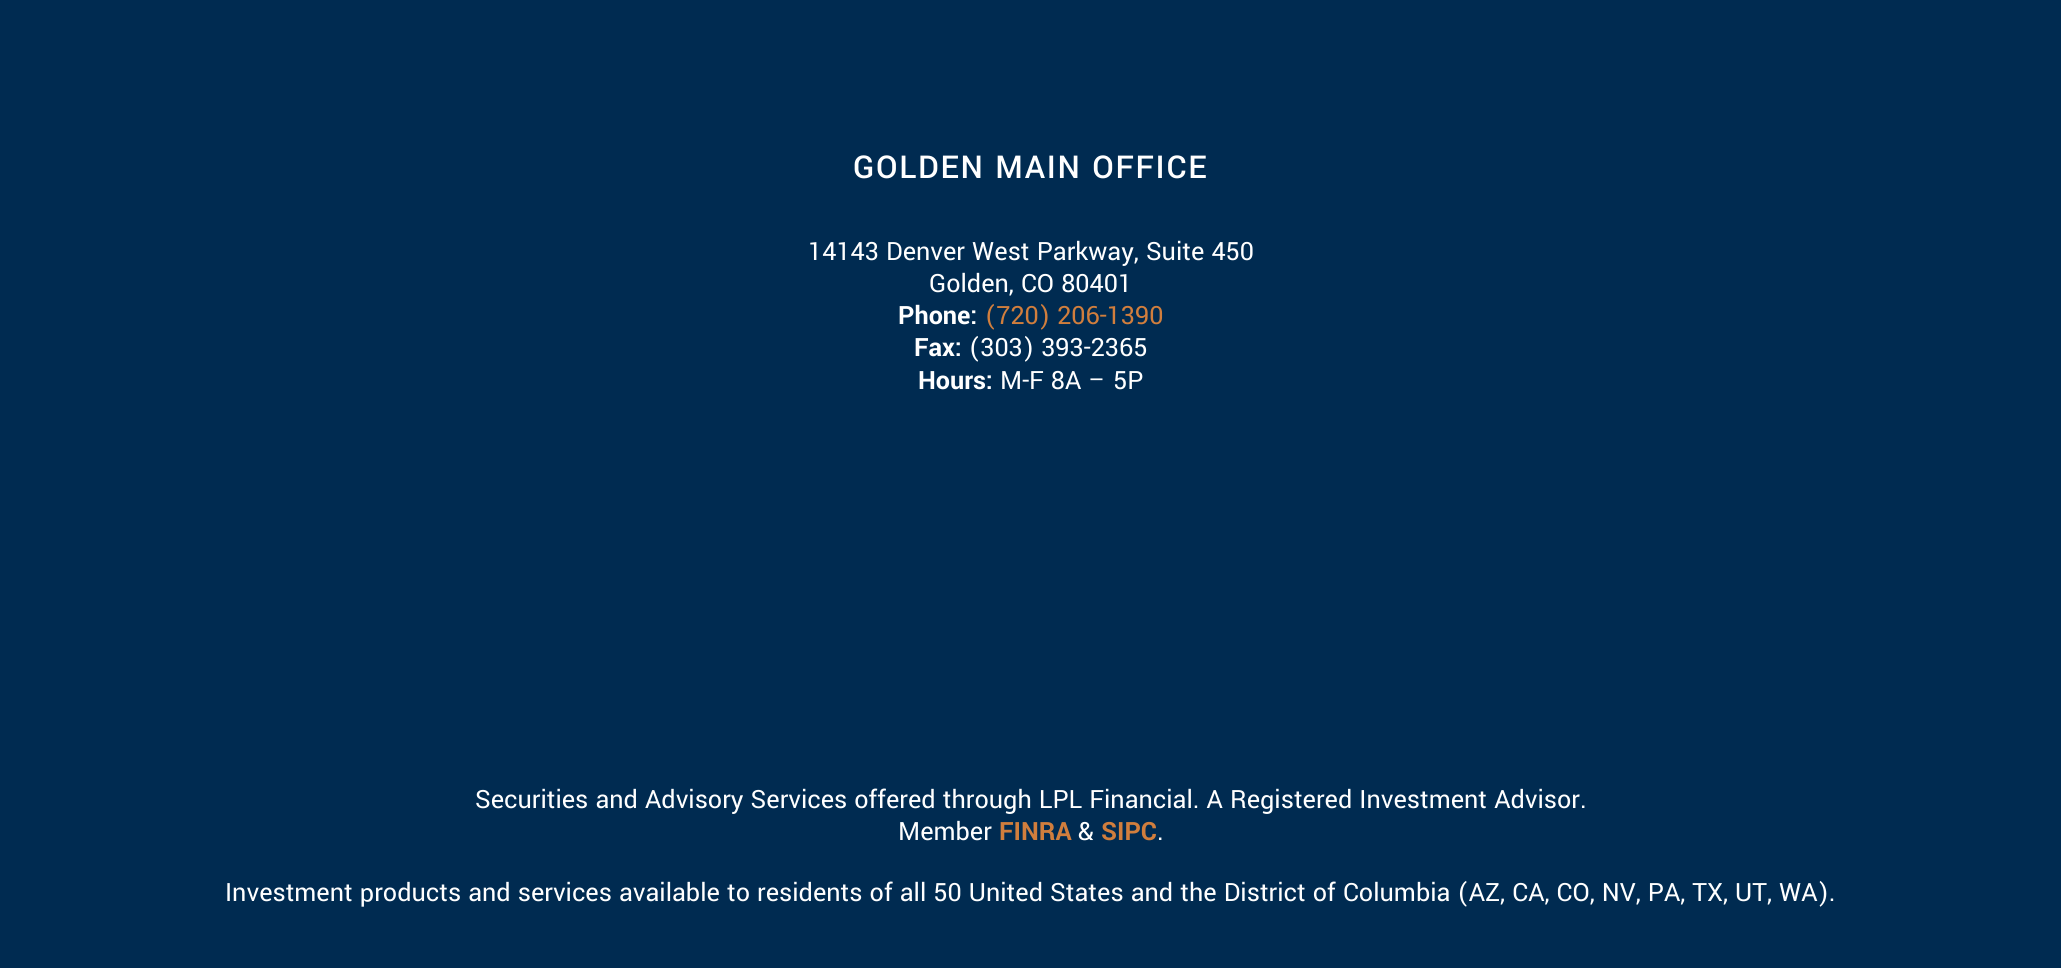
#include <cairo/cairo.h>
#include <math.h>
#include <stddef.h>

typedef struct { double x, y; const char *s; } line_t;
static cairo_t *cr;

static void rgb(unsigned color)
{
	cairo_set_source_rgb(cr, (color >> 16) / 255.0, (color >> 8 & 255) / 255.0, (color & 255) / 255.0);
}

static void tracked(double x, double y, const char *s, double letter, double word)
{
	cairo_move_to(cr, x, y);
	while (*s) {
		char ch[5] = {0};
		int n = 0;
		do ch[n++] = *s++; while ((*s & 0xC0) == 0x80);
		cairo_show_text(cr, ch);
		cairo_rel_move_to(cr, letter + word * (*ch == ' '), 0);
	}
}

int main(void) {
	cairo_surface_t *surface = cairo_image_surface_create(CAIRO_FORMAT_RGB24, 2061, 968);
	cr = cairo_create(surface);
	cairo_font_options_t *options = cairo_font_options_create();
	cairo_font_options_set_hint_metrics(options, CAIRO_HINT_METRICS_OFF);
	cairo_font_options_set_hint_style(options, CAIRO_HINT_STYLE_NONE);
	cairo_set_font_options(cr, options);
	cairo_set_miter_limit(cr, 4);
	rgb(0x002b51);
	cairo_paint(cr);
	cairo_select_font_face(cr, "Yantramanav Medium", CAIRO_FONT_SLANT_NORMAL, CAIRO_FONT_WEIGHT_NORMAL);
	cairo_set_font_size(cr, 35);
	rgb(0xffffff);
	tracked(853, 178, "GOLDEN MAIN OFFICE", 1.75, 0);
	cairo_select_font_face(cr, "Yantramanav", CAIRO_FONT_SLANT_NORMAL, CAIRO_FONT_WEIGHT_NORMAL);
	cairo_set_font_size(cr, 28);
	cairo_move_to(cr, 808, 260);
	cairo_show_text(cr, "14143 Denver West Parkway, Suite 450");
	cairo_move_to(cr, 929, 292);
	cairo_show_text(cr, "Golden, CO 80401");
	cairo_select_font_face(cr, "Yantramanav", CAIRO_FONT_SLANT_NORMAL, CAIRO_FONT_WEIGHT_BOLD);
	cairo_move_to(cr, 898, 324);
	cairo_show_text(cr, "Phone:");
	cairo_select_font_face(cr, "Yantramanav", CAIRO_FONT_SLANT_NORMAL, CAIRO_FONT_WEIGHT_NORMAL);
	rgb(0xd17e3d);
	cairo_move_to(cr, 985, 324);
	cairo_show_text(cr, "(720) 206-1390");
	cairo_select_font_face(cr, "Yantramanav", CAIRO_FONT_SLANT_NORMAL, CAIRO_FONT_WEIGHT_BOLD);
	rgb(0xffffff);
	cairo_move_to(cr, 914, 356);
	cairo_show_text(cr, "Fax:");
	cairo_select_font_face(cr, "Yantramanav", CAIRO_FONT_SLANT_NORMAL, CAIRO_FONT_WEIGHT_NORMAL);
	cairo_move_to(cr, 969, 356);
	cairo_show_text(cr, "(303) 393-2365");
	cairo_select_font_face(cr, "Yantramanav", CAIRO_FONT_SLANT_NORMAL, CAIRO_FONT_WEIGHT_BOLD);
	cairo_move_to(cr, 918, 389);
	cairo_show_text(cr, "Hours:");
	cairo_select_font_face(cr, "Yantramanav", CAIRO_FONT_SLANT_NORMAL, CAIRO_FONT_WEIGHT_NORMAL);
	{
		static const line_t items[] = {
			{1000, 389, "M-F 8A – 5P"},
			{475, 808, "Securities and Advisory Services offered through LPL Financial. A Registered Investment Advisor."},
			{898, 840, "Member"},
		};
		for (size_t i = 0; i < sizeof items / sizeof *items; i++) {
			cairo_move_to(cr, items[i].x, items[i].y);
			cairo_show_text(cr, items[i].s);
		}
	}
	cairo_select_font_face(cr, "Yantramanav", CAIRO_FONT_SLANT_NORMAL, CAIRO_FONT_WEIGHT_BOLD);
	rgb(0xd17e3d);
	cairo_move_to(cr, 999, 840);
	cairo_show_text(cr, "FINRA");
	cairo_select_font_face(cr, "Yantramanav", CAIRO_FONT_SLANT_NORMAL, CAIRO_FONT_WEIGHT_NORMAL);
	rgb(0xffffff);
	cairo_move_to(cr, 1078, 840);
	cairo_show_text(cr, "&");
	cairo_select_font_face(cr, "Yantramanav", CAIRO_FONT_SLANT_NORMAL, CAIRO_FONT_WEIGHT_BOLD);
	rgb(0xd17e3d);
	cairo_move_to(cr, 1101, 840);
	cairo_show_text(cr, "SIPC");
	cairo_select_font_face(cr, "Yantramanav", CAIRO_FONT_SLANT_NORMAL, CAIRO_FONT_WEIGHT_NORMAL);
	rgb(0xffffff);
	cairo_move_to(cr, 1157, 840);
	cairo_show_text(cr, ".");
	cairo_move_to(cr, 225, 901);
	cairo_show_text(cr, "Investment products and services available to residents of all 50 United States and the District of Columbia (AZ, CA, CO, NV, PA, TX, UT, WA).");
	cairo_surface_write_to_png(surface, "page.png");
	cairo_font_options_destroy(options);
	cairo_destroy(cr);
	cairo_surface_destroy(surface);
	return 0;
}
